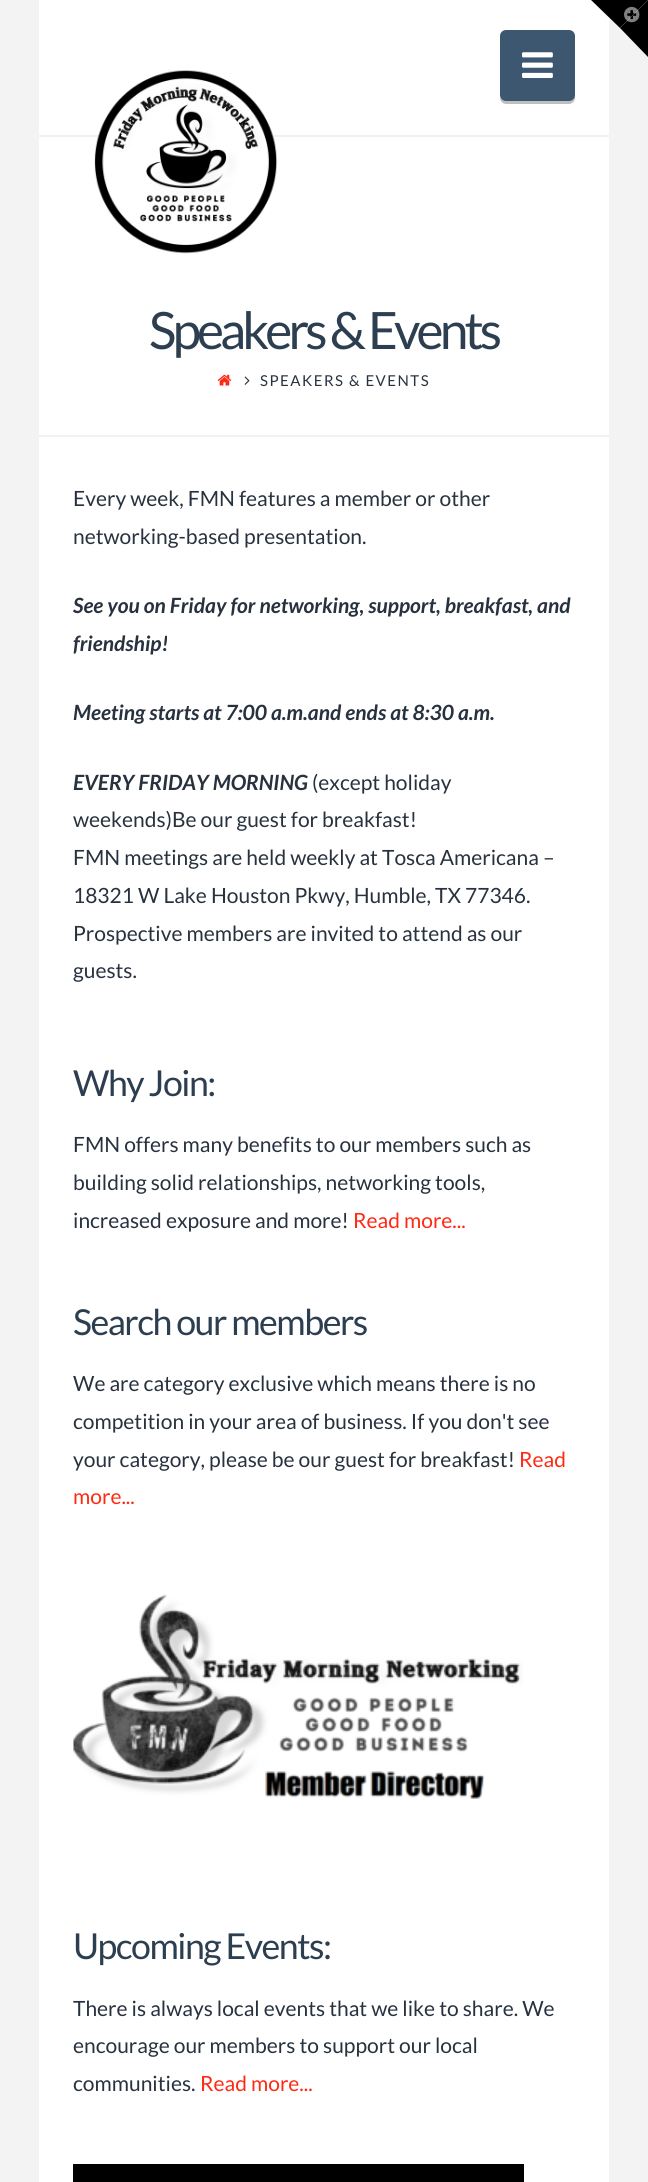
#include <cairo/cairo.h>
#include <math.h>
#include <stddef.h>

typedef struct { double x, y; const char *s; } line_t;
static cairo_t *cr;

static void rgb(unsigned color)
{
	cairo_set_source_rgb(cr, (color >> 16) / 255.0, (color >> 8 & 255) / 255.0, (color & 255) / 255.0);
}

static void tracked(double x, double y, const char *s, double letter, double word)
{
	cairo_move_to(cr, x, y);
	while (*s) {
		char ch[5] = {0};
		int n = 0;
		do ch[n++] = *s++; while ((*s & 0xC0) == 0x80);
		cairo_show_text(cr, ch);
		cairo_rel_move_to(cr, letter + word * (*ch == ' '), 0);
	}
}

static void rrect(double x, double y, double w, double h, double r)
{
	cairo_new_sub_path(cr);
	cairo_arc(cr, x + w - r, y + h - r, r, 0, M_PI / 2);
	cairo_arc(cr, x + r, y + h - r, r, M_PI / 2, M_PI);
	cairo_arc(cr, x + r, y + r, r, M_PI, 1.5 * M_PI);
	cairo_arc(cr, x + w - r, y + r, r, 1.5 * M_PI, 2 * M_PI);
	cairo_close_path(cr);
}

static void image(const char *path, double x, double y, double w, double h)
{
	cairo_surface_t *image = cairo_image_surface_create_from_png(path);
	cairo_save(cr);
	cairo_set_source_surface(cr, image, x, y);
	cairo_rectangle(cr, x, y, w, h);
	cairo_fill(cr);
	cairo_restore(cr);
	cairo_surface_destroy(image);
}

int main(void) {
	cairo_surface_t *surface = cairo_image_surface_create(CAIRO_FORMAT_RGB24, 648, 2182);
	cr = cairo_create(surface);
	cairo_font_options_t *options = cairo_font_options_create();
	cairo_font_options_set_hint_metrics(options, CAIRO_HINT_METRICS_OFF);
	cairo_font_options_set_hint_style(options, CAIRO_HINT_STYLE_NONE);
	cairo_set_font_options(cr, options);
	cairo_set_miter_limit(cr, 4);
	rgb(0xf3f3f3);
	cairo_paint(cr);
	rgb(0xffffff);
	cairo_rectangle(cr, 39, 0, 570, 2182);
	cairo_fill(cr);
	rgb(0xf2f2f2);
	cairo_rectangle(cr, 39, 135, 570, 2);
	cairo_fill(cr);
	image("img/1.png", 94, 70, 184, 184);
	rgb(0xbfbfbf);
	cairo_new_path(cr);
	cairo_move_to(cr, 500, 97);
	cairo_line_to(cr, 500, 98);
	cairo_curve_to(cr, 500, 101, 503, 104, 506, 104);
	cairo_line_to(cr, 569, 104);
	cairo_curve_to(cr, 572, 104, 575, 101, 575, 98);
	cairo_line_to(cr, 575, 39);
	cairo_line_to(cr, 574, 37);
	cairo_line_to(cr, 574, 94);
	cairo_curve_to(cr, 574, 98, 572, 100, 568, 100);
	cairo_line_to(cr, 506, 100);
	cairo_curve_to(cr, 503, 100, 501, 99, 500, 97);
	cairo_close_path(cr);
	cairo_fill(cr);
	rgb(0x3e5771);
	rrect(500, 30, 75, 71, 6);
	cairo_fill(cr);
	image("img/2.png", 522, 52, 31, 26);
	rgb(0x000000);
	cairo_new_path(cr);
	cairo_move_to(cr, 591, 0);
	cairo_line_to(cr, 648, 0);
	cairo_line_to(cr, 620, 28);
	cairo_close_path(cr);
	cairo_fill(cr);
	cairo_new_path(cr);
	cairo_move_to(cr, 648, 0);
	cairo_line_to(cr, 648, 57);
	cairo_line_to(cr, 620, 28);
	cairo_close_path(cr);
	cairo_fill(cr);
	image("img/3.png", 624, 6, 16, 17);
	rgb(0xf2f2f2);
	cairo_rectangle(cr, 39, 435, 570, 2);
	cairo_fill(cr);
	image("img/4.png", 217, 374, 15, 12);
	image("img/5.png", 244, 376, 6, 9);
	image("img/6.png", 73, 1594, 450, 205);
	rgb(0x000000);
	cairo_rectangle(cr, 73, 2164, 451, 18);
	cairo_fill(cr);
	cairo_select_font_face(cr, "Lato", CAIRO_FONT_SLANT_NORMAL, CAIRO_FONT_WEIGHT_NORMAL);
	cairo_set_font_size(cr, 51.5);
	rgb(0x2c3e50);
	tracked(149, 349, "Speakers & Events", -3.9, 0);
	cairo_set_font_size(cr, 15);
	rgb(0x28323f);
	tracked(260, 386, "SPEAKERS & EVENTS", 1.5, 0);
	cairo_set_font_size(cr, 21);
	cairo_move_to(cr, 73, 506);
	cairo_show_text(cr, "Every week, FMN features a member or other");
	cairo_move_to(cr, 73, 544);
	cairo_show_text(cr, "networking-based presentation.");
	cairo_select_font_face(cr, "Lato", CAIRO_FONT_SLANT_ITALIC, CAIRO_FONT_WEIGHT_BOLD);
	{
		static const line_t items[] = {
			{73, 613, "See you on Friday for networking, support, breakfast, and"},
			{73, 651, "friendship!"},
			{73, 720, "Meeting starts at 7:00 a.m.and ends at 8:30 a.m."},
			{73, 790, "EVERY FRIDAY MORNING"},
		};
		for (size_t i = 0; i < sizeof items / sizeof *items; i++) {
			cairo_move_to(cr, items[i].x, items[i].y);
			cairo_show_text(cr, items[i].s);
		}
	}
	cairo_select_font_face(cr, "Lato", CAIRO_FONT_SLANT_NORMAL, CAIRO_FONT_WEIGHT_NORMAL);
	{
		static const line_t items[] = {
			{312, 790, "(except holiday"},
			{73, 827, "weekends)Be our guest for breakfast!"},
			{73, 865, "FMN meetings are held weekly at Tosca Americana –"},
			{73, 903, "18321 W Lake Houston Pkwy, Humble, TX 77346."},
			{73, 941, "Prospective members are invited to attend as our"},
			{73, 978, "guests."},
		};
		for (size_t i = 0; i < sizeof items / sizeof *items; i++) {
			cairo_move_to(cr, items[i].x, items[i].y);
			cairo_show_text(cr, items[i].s);
		}
	}
	cairo_set_font_size(cr, 35.75);
	rgb(0x2c3e50);
	tracked(73, 1096, "Why Join:", -1.5, 0);
	cairo_set_font_size(cr, 21);
	rgb(0x28323f);
	{
		static const line_t items[] = {
			{73, 1152, "FMN offers many benefits to our members such as"},
			{73, 1190, "building solid relationships, networking tools,"},
			{73, 1228, "increased exposure and more!"},
		};
		for (size_t i = 0; i < sizeof items / sizeof *items; i++) {
			cairo_move_to(cr, items[i].x, items[i].y);
			cairo_show_text(cr, items[i].s);
		}
	}
	rgb(0xff2a13);
	cairo_move_to(cr, 353, 1228);
	cairo_show_text(cr, "Read more...");
	cairo_set_font_size(cr, 35.75);
	rgb(0x2c3e50);
	tracked(73, 1335, "Search our members", -1.5, 0);
	cairo_set_font_size(cr, 21);
	rgb(0x28323f);
	{
		static const line_t items[] = {
			{73, 1391, "We are category exclusive which means there is no"},
			{73, 1429, "competition in your area of business. If you don't see"},
			{73, 1467, "your category, please be our guest for breakfast!"},
		};
		for (size_t i = 0; i < sizeof items / sizeof *items; i++) {
			cairo_move_to(cr, items[i].x, items[i].y);
			cairo_show_text(cr, items[i].s);
		}
	}
	rgb(0xff2a13);
	cairo_move_to(cr, 519, 1467);
	cairo_show_text(cr, "Read");
	cairo_move_to(cr, 73, 1504);
	cairo_show_text(cr, "more...");
	cairo_set_font_size(cr, 35.75);
	rgb(0x2c3e50);
	tracked(73, 1959, "Upcoming Events:", -1.5, 0);
	cairo_set_font_size(cr, 21);
	rgb(0x28323f);
	{
		static const line_t items[] = {
			{73, 2016, "There is always local events that we like to share. We"},
			{73, 2053, "encourage our members to support our local"},
			{73, 2091, "communities."},
		};
		for (size_t i = 0; i < sizeof items / sizeof *items; i++) {
			cairo_move_to(cr, items[i].x, items[i].y);
			cairo_show_text(cr, items[i].s);
		}
	}
	rgb(0xff2a13);
	cairo_move_to(cr, 200, 2091);
	cairo_show_text(cr, "Read more...");
	cairo_surface_write_to_png(surface, "page.png");
	cairo_font_options_destroy(options);
	cairo_destroy(cr);
	cairo_surface_destroy(surface);
	return 0;
}
